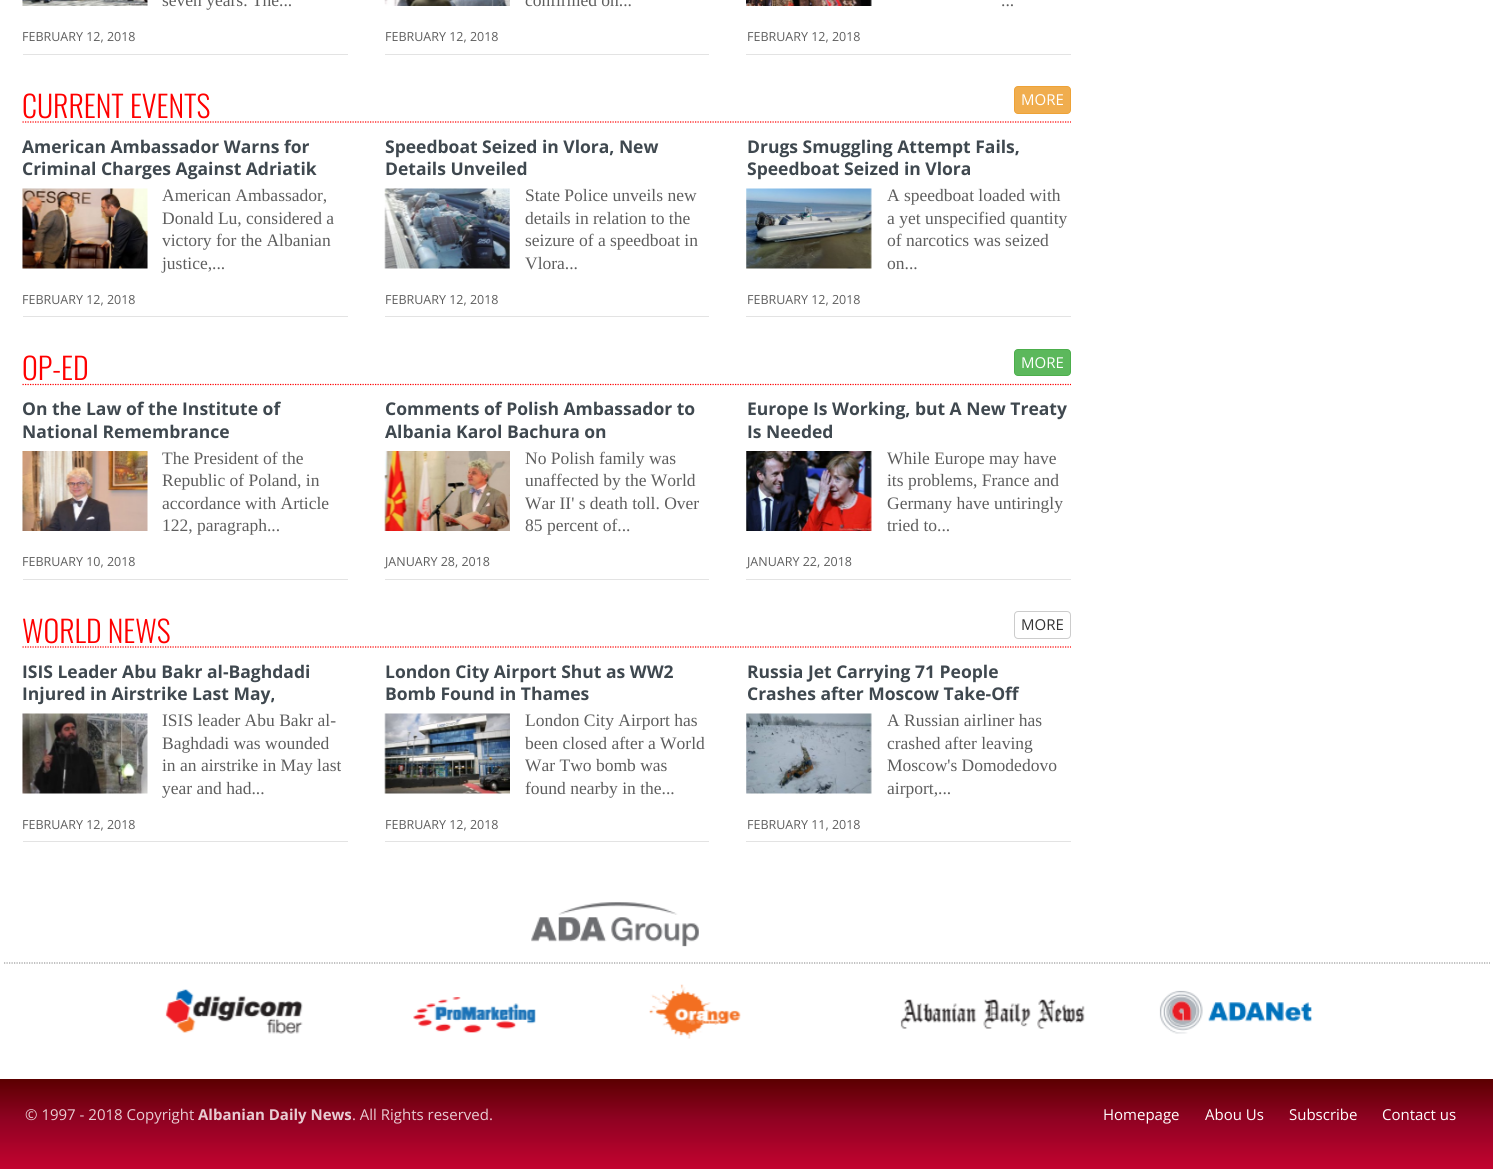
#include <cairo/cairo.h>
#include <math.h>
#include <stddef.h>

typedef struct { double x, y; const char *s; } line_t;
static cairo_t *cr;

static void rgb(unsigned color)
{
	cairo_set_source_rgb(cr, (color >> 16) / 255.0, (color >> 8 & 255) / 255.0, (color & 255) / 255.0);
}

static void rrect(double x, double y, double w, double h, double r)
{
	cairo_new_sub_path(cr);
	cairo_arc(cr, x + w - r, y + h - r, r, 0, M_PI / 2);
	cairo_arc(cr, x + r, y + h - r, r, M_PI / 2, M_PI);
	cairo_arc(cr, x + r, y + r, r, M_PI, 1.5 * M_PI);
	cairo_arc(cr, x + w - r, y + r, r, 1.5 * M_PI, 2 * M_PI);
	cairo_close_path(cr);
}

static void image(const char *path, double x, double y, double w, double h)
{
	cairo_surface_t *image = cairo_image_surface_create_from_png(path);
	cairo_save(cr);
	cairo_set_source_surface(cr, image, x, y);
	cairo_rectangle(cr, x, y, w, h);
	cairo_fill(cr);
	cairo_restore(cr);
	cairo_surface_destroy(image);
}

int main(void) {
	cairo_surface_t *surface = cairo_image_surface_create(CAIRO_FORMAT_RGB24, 1493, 1169);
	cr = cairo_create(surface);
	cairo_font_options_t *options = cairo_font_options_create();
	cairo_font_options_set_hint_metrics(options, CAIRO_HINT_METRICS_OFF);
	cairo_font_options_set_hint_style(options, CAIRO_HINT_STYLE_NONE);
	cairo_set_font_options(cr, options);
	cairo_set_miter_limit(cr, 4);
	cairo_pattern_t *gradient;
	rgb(0xffffff);
	cairo_paint(cr);
	rgb(0xe3e3e3);
	cairo_rectangle(cr, 23, 54, 325, 1);
	cairo_fill(cr);
	image("img/1.png", 22, 0, 126, 6);
	cairo_rectangle(cr, 385, 54, 324, 1);
	cairo_fill(cr);
	image("img/2.png", 384, 0, 126, 6);
	cairo_rectangle(cr, 746, 54, 325, 1);
	cairo_fill(cr);
	image("img/3.png", 746, 0, 126, 6);
	cairo_new_path(cr);
	cairo_move_to(cr, 22.5, 122);
	cairo_line_to(cr, 1071, 122);
	rgb(0xff0000);
	cairo_set_line_width(cr, 1.2);
	cairo_set_dash(cr, (double[]){1.25, 1.25}, 2, 0);
	cairo_stroke(cr);
	rgb(0xf0ad4e);
	rrect(1014.5, 86.5, 56, 27, 3.5);
	cairo_fill_preserve(cr);
	rgb(0xeea236);
	cairo_set_line_width(cr, 1);
	cairo_set_dash(cr, NULL, 0, 0);
	cairo_stroke(cr);
	rgb(0xe3e3e3);
	cairo_rectangle(cr, 23, 316, 325, 1);
	cairo_fill(cr);
	image("img/4.png", 22, 188, 126, 81);
	cairo_rectangle(cr, 385, 316, 324, 1);
	cairo_fill(cr);
	image("img/5.png", 384, 188, 126, 81);
	cairo_rectangle(cr, 746, 316, 325, 1);
	cairo_fill(cr);
	image("img/6.png", 746, 188, 126, 81);
	cairo_new_path(cr);
	cairo_move_to(cr, 22.5, 384.5);
	cairo_line_to(cr, 1071, 384.5);
	rgb(0xff0000);
	cairo_set_line_width(cr, 1.2);
	cairo_set_dash(cr, (double[]){1.25, 1.25}, 2, 0);
	cairo_stroke(cr);
	rgb(0x5cb85c);
	rrect(1014.5, 349.5, 56, 26, 3.5);
	cairo_fill_preserve(cr);
	rgb(0x4cae4c);
	cairo_set_line_width(cr, 1);
	cairo_set_dash(cr, NULL, 0, 0);
	cairo_stroke(cr);
	rgb(0xe3e3e3);
	cairo_rectangle(cr, 23, 579, 325, 1);
	cairo_fill(cr);
	image("img/7.png", 22, 451, 126, 80);
	cairo_rectangle(cr, 385, 579, 324, 1);
	cairo_fill(cr);
	image("img/8.png", 384, 451, 126, 80);
	cairo_rectangle(cr, 746, 579, 325, 1);
	cairo_fill(cr);
	image("img/9.png", 746, 451, 126, 80);
	cairo_new_path(cr);
	cairo_move_to(cr, 22.5, 647);
	cairo_line_to(cr, 1071, 647);
	rgb(0xff0000);
	cairo_set_line_width(cr, 1.2);
	cairo_set_dash(cr, (double[]){1.25, 1.25}, 2, 0);
	cairo_stroke(cr);
	rrect(1014.5, 611.5, 56, 27, 3.5);
	rgb(0xcccccc);
	cairo_set_line_width(cr, 1);
	cairo_set_dash(cr, NULL, 0, 0);
	cairo_stroke(cr);
	rgb(0xe3e3e3);
	cairo_rectangle(cr, 23, 841, 325, 1);
	cairo_fill(cr);
	image("img/10.png", 22, 713, 126, 81);
	cairo_rectangle(cr, 385, 841, 324, 1);
	cairo_fill(cr);
	image("img/11.png", 384, 713, 126, 81);
	cairo_rectangle(cr, 746, 841, 325, 1);
	cairo_fill(cr);
	image("img/12.png", 746, 713, 126, 81);
	cairo_new_path(cr);
	cairo_move_to(cr, 4, 963);
	cairo_line_to(cr, 1490, 963);
	rgb(0x999999);
	cairo_set_line_width(cr, 1.2);
	cairo_set_dash(cr, (double[]){1.25, 1.25}, 2, 0);
	cairo_stroke(cr);
	image("img/13.png", 531, 902, 168, 45);
	image("img/14.png", 165, 989, 138, 45);
	image("img/15.png", 413, 997, 123, 36);
	image("img/16.png", 649, 984, 92, 55);
	image("img/17.png", 900, 999, 185, 30);
	image("img/18.png", 1159, 990, 153, 44);
	gradient = cairo_pattern_create_linear(747, 1079, 747, 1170);
	cairo_pattern_add_color_stop_rgba(gradient, 0, 0.357, 0, 0, 1);
	cairo_pattern_add_color_stop_rgba(gradient, 0.44, 0.561, 0.008, 0.133, 1);
	cairo_pattern_add_color_stop_rgba(gradient, 1, 0.769, 0.012, 0.188, 1);
	cairo_set_source(cr, gradient);
	cairo_pattern_destroy(gradient);
	cairo_rectangle(cr, 0, 1079, 1493, 90);
	cairo_fill(cr);
	cairo_select_font_face(cr, "Liberation Serif", CAIRO_FONT_SLANT_NORMAL, CAIRO_FONT_WEIGHT_NORMAL);
	cairo_set_font_size(cr, 17.5);
	rgb(0x5e5e5e);
	cairo_move_to(cr, 162, 6);
	cairo_show_text(cr, "seven years. The...");
	cairo_select_font_face(cr, "Open Sans", CAIRO_FONT_SLANT_NORMAL, CAIRO_FONT_WEIGHT_NORMAL);
	cairo_set_font_size(cr, 12.5);
	cairo_move_to(cr, 22, 41);
	cairo_show_text(cr, "FEBRUARY 12, 2018");
	cairo_select_font_face(cr, "Liberation Serif", CAIRO_FONT_SLANT_NORMAL, CAIRO_FONT_WEIGHT_NORMAL);
	cairo_set_font_size(cr, 17.5);
	cairo_move_to(cr, 525, 6);
	cairo_show_text(cr, "confirmed on...");
	cairo_select_font_face(cr, "Open Sans", CAIRO_FONT_SLANT_NORMAL, CAIRO_FONT_WEIGHT_NORMAL);
	cairo_set_font_size(cr, 12.5);
	cairo_move_to(cr, 385, 41);
	cairo_show_text(cr, "FEBRUARY 12, 2018");
	cairo_select_font_face(cr, "Liberation Serif", CAIRO_FONT_SLANT_NORMAL, CAIRO_FONT_WEIGHT_NORMAL);
	cairo_set_font_size(cr, 17.5);
	cairo_move_to(cr, 1001, 6);
	cairo_show_text(cr, "...");
	cairo_select_font_face(cr, "Open Sans", CAIRO_FONT_SLANT_NORMAL, CAIRO_FONT_WEIGHT_NORMAL);
	cairo_set_font_size(cr, 12.5);
	cairo_move_to(cr, 747, 41);
	cairo_show_text(cr, "FEBRUARY 12, 2018");
	cairo_select_font_face(cr, "Oswald Light", CAIRO_FONT_SLANT_NORMAL, CAIRO_FONT_WEIGHT_NORMAL);
	cairo_set_font_size(cr, 30);
	rgb(0xff0000);
	cairo_move_to(cr, 22, 118);
	cairo_show_text(cr, "CURRENT EVENTS");
	cairo_select_font_face(cr, "Open Sans", CAIRO_FONT_SLANT_NORMAL, CAIRO_FONT_WEIGHT_NORMAL);
	cairo_set_font_size(cr, 15);
	rgb(0xffffff);
	cairo_move_to(cr, 1021, 105);
	cairo_show_text(cr, "MORE");
	cairo_select_font_face(cr, "Open Sans", CAIRO_FONT_SLANT_NORMAL, CAIRO_FONT_WEIGHT_BOLD);
	cairo_set_font_size(cr, 17.5);
	rgb(0x3f484f);
	cairo_move_to(cr, 22, 153);
	cairo_show_text(cr, "American Ambassador Warns for");
	cairo_move_to(cr, 22, 175);
	cairo_show_text(cr, "Criminal Charges Against Adriatik");
	cairo_select_font_face(cr, "Liberation Serif", CAIRO_FONT_SLANT_NORMAL, CAIRO_FONT_WEIGHT_NORMAL);
	rgb(0x5e5e5e);
	{
		static const line_t items[] = {
			{162, 201, "American Ambassador,"},
			{162, 224, "Donald Lu, considered a"},
			{162, 246, "victory for the Albanian"},
			{162, 269, "justice,..."},
		};
		for (size_t i = 0; i < sizeof items / sizeof *items; i++) {
			cairo_move_to(cr, items[i].x, items[i].y);
			cairo_show_text(cr, items[i].s);
		}
	}
	cairo_select_font_face(cr, "Open Sans", CAIRO_FONT_SLANT_NORMAL, CAIRO_FONT_WEIGHT_NORMAL);
	cairo_set_font_size(cr, 12.5);
	cairo_move_to(cr, 22, 304);
	cairo_show_text(cr, "FEBRUARY 12, 2018");
	cairo_select_font_face(cr, "Open Sans", CAIRO_FONT_SLANT_NORMAL, CAIRO_FONT_WEIGHT_BOLD);
	cairo_set_font_size(cr, 17.5);
	rgb(0x3f484f);
	cairo_move_to(cr, 385, 153);
	cairo_show_text(cr, "Speedboat Seized in Vlora, New");
	cairo_move_to(cr, 385, 175);
	cairo_show_text(cr, "Details Unveiled");
	cairo_select_font_face(cr, "Liberation Serif", CAIRO_FONT_SLANT_NORMAL, CAIRO_FONT_WEIGHT_NORMAL);
	rgb(0x5e5e5e);
	{
		static const line_t items[] = {
			{525, 201, "State Police unveils new"},
			{525, 224, "details in relation to the"},
			{525, 246, "seizure of a speedboat in"},
			{525, 269, "Vlora..."},
		};
		for (size_t i = 0; i < sizeof items / sizeof *items; i++) {
			cairo_move_to(cr, items[i].x, items[i].y);
			cairo_show_text(cr, items[i].s);
		}
	}
	cairo_select_font_face(cr, "Open Sans", CAIRO_FONT_SLANT_NORMAL, CAIRO_FONT_WEIGHT_NORMAL);
	cairo_set_font_size(cr, 12.5);
	cairo_move_to(cr, 385, 304);
	cairo_show_text(cr, "FEBRUARY 12, 2018");
	cairo_select_font_face(cr, "Open Sans", CAIRO_FONT_SLANT_NORMAL, CAIRO_FONT_WEIGHT_BOLD);
	cairo_set_font_size(cr, 17.5);
	rgb(0x3f484f);
	cairo_move_to(cr, 747, 153);
	cairo_show_text(cr, "Drugs Smuggling Attempt Fails,");
	cairo_move_to(cr, 747, 175);
	cairo_show_text(cr, "Speedboat Seized in Vlora");
	cairo_select_font_face(cr, "Liberation Serif", CAIRO_FONT_SLANT_NORMAL, CAIRO_FONT_WEIGHT_NORMAL);
	rgb(0x5e5e5e);
	{
		static const line_t items[] = {
			{887, 201, "A speedboat loaded with"},
			{887, 224, "a yet unspecified quantity"},
			{887, 246, "of narcotics was seized"},
			{887, 269, "on..."},
		};
		for (size_t i = 0; i < sizeof items / sizeof *items; i++) {
			cairo_move_to(cr, items[i].x, items[i].y);
			cairo_show_text(cr, items[i].s);
		}
	}
	cairo_select_font_face(cr, "Open Sans", CAIRO_FONT_SLANT_NORMAL, CAIRO_FONT_WEIGHT_NORMAL);
	cairo_set_font_size(cr, 12.5);
	cairo_move_to(cr, 747, 304);
	cairo_show_text(cr, "FEBRUARY 12, 2018");
	cairo_select_font_face(cr, "Oswald Light", CAIRO_FONT_SLANT_NORMAL, CAIRO_FONT_WEIGHT_NORMAL);
	cairo_set_font_size(cr, 30);
	rgb(0xff0000);
	cairo_move_to(cr, 22, 380);
	cairo_show_text(cr, "OP-ED");
	cairo_select_font_face(cr, "Open Sans", CAIRO_FONT_SLANT_NORMAL, CAIRO_FONT_WEIGHT_NORMAL);
	cairo_set_font_size(cr, 15);
	rgb(0xffffff);
	cairo_move_to(cr, 1021, 368);
	cairo_show_text(cr, "MORE");
	cairo_select_font_face(cr, "Open Sans", CAIRO_FONT_SLANT_NORMAL, CAIRO_FONT_WEIGHT_BOLD);
	cairo_set_font_size(cr, 17.5);
	rgb(0x3f484f);
	cairo_move_to(cr, 22, 415);
	cairo_show_text(cr, "On the Law of the Institute of");
	cairo_move_to(cr, 22, 438);
	cairo_show_text(cr, "National Remembrance");
	cairo_select_font_face(cr, "Liberation Serif", CAIRO_FONT_SLANT_NORMAL, CAIRO_FONT_WEIGHT_NORMAL);
	rgb(0x5e5e5e);
	{
		static const line_t items[] = {
			{162, 464, "The President of the"},
			{162, 486, "Republic of Poland, in"},
			{162, 509, "accordance with Article"},
			{162, 531, "122, paragraph..."},
		};
		for (size_t i = 0; i < sizeof items / sizeof *items; i++) {
			cairo_move_to(cr, items[i].x, items[i].y);
			cairo_show_text(cr, items[i].s);
		}
	}
	cairo_select_font_face(cr, "Open Sans", CAIRO_FONT_SLANT_NORMAL, CAIRO_FONT_WEIGHT_NORMAL);
	cairo_set_font_size(cr, 12.5);
	cairo_move_to(cr, 22, 566);
	cairo_show_text(cr, "FEBRUARY 10, 2018");
	cairo_select_font_face(cr, "Open Sans", CAIRO_FONT_SLANT_NORMAL, CAIRO_FONT_WEIGHT_BOLD);
	cairo_set_font_size(cr, 17.5);
	rgb(0x3f484f);
	cairo_move_to(cr, 385, 415);
	cairo_show_text(cr, "Comments of Polish Ambassador to");
	cairo_move_to(cr, 385, 438);
	cairo_show_text(cr, "Albania Karol Bachura on");
	cairo_select_font_face(cr, "Liberation Serif", CAIRO_FONT_SLANT_NORMAL, CAIRO_FONT_WEIGHT_NORMAL);
	rgb(0x5e5e5e);
	{
		static const line_t items[] = {
			{525, 464, "No Polish family was"},
			{525, 486, "unaffected by the World"},
			{525, 509, "War II' s death toll. Over"},
			{525, 531, "85 percent of..."},
		};
		for (size_t i = 0; i < sizeof items / sizeof *items; i++) {
			cairo_move_to(cr, items[i].x, items[i].y);
			cairo_show_text(cr, items[i].s);
		}
	}
	cairo_select_font_face(cr, "Open Sans", CAIRO_FONT_SLANT_NORMAL, CAIRO_FONT_WEIGHT_NORMAL);
	cairo_set_font_size(cr, 12.5);
	cairo_move_to(cr, 385, 566);
	cairo_show_text(cr, "JANUARY 28, 2018");
	cairo_select_font_face(cr, "Open Sans", CAIRO_FONT_SLANT_NORMAL, CAIRO_FONT_WEIGHT_BOLD);
	cairo_set_font_size(cr, 17.5);
	rgb(0x3f484f);
	cairo_move_to(cr, 747, 415);
	cairo_show_text(cr, "Europe Is Working, but A New Treaty");
	cairo_move_to(cr, 747, 438);
	cairo_show_text(cr, "Is Needed");
	cairo_select_font_face(cr, "Liberation Serif", CAIRO_FONT_SLANT_NORMAL, CAIRO_FONT_WEIGHT_NORMAL);
	rgb(0x5e5e5e);
	{
		static const line_t items[] = {
			{887, 464, "While Europe may have"},
			{887, 486, "its problems, France and"},
			{887, 509, "Germany have untiringly"},
			{887, 531, "tried to..."},
		};
		for (size_t i = 0; i < sizeof items / sizeof *items; i++) {
			cairo_move_to(cr, items[i].x, items[i].y);
			cairo_show_text(cr, items[i].s);
		}
	}
	cairo_select_font_face(cr, "Open Sans", CAIRO_FONT_SLANT_NORMAL, CAIRO_FONT_WEIGHT_NORMAL);
	cairo_set_font_size(cr, 12.5);
	cairo_move_to(cr, 747, 566);
	cairo_show_text(cr, "JANUARY 22, 2018");
	cairo_select_font_face(cr, "Oswald Light", CAIRO_FONT_SLANT_NORMAL, CAIRO_FONT_WEIGHT_NORMAL);
	cairo_set_font_size(cr, 30);
	rgb(0xff0000);
	cairo_move_to(cr, 22, 643);
	cairo_show_text(cr, "WORLD NEWS");
	cairo_select_font_face(cr, "Open Sans", CAIRO_FONT_SLANT_NORMAL, CAIRO_FONT_WEIGHT_NORMAL);
	cairo_set_font_size(cr, 15);
	rgb(0x333333);
	cairo_move_to(cr, 1021, 630);
	cairo_show_text(cr, "MORE");
	cairo_select_font_face(cr, "Open Sans", CAIRO_FONT_SLANT_NORMAL, CAIRO_FONT_WEIGHT_BOLD);
	cairo_set_font_size(cr, 17.5);
	rgb(0x3f484f);
	cairo_move_to(cr, 22, 678);
	cairo_show_text(cr, "ISIS Leader Abu Bakr al-Baghdadi");
	cairo_move_to(cr, 22, 700);
	cairo_show_text(cr, "Injured in Airstrike Last May,");
	cairo_select_font_face(cr, "Liberation Serif", CAIRO_FONT_SLANT_NORMAL, CAIRO_FONT_WEIGHT_NORMAL);
	rgb(0x5e5e5e);
	{
		static const line_t items[] = {
			{162, 726, "ISIS leader Abu Bakr al-"},
			{162, 749, "Baghdadi was wounded"},
			{162, 771, "in an airstrike in May last"},
			{162, 794, "year and had..."},
		};
		for (size_t i = 0; i < sizeof items / sizeof *items; i++) {
			cairo_move_to(cr, items[i].x, items[i].y);
			cairo_show_text(cr, items[i].s);
		}
	}
	cairo_select_font_face(cr, "Open Sans", CAIRO_FONT_SLANT_NORMAL, CAIRO_FONT_WEIGHT_NORMAL);
	cairo_set_font_size(cr, 12.5);
	cairo_move_to(cr, 22, 829);
	cairo_show_text(cr, "FEBRUARY 12, 2018");
	cairo_select_font_face(cr, "Open Sans", CAIRO_FONT_SLANT_NORMAL, CAIRO_FONT_WEIGHT_BOLD);
	cairo_set_font_size(cr, 17.5);
	rgb(0x3f484f);
	cairo_move_to(cr, 385, 678);
	cairo_show_text(cr, "London City Airport Shut as WW2");
	cairo_move_to(cr, 385, 700);
	cairo_show_text(cr, "Bomb Found in Thames");
	cairo_select_font_face(cr, "Liberation Serif", CAIRO_FONT_SLANT_NORMAL, CAIRO_FONT_WEIGHT_NORMAL);
	rgb(0x5e5e5e);
	{
		static const line_t items[] = {
			{525, 726, "London City Airport has"},
			{525, 749, "been closed after a World"},
			{525, 771, "War Two bomb was"},
			{525, 794, "found nearby in the..."},
		};
		for (size_t i = 0; i < sizeof items / sizeof *items; i++) {
			cairo_move_to(cr, items[i].x, items[i].y);
			cairo_show_text(cr, items[i].s);
		}
	}
	cairo_select_font_face(cr, "Open Sans", CAIRO_FONT_SLANT_NORMAL, CAIRO_FONT_WEIGHT_NORMAL);
	cairo_set_font_size(cr, 12.5);
	cairo_move_to(cr, 385, 829);
	cairo_show_text(cr, "FEBRUARY 12, 2018");
	cairo_select_font_face(cr, "Open Sans", CAIRO_FONT_SLANT_NORMAL, CAIRO_FONT_WEIGHT_BOLD);
	cairo_set_font_size(cr, 17.5);
	rgb(0x3f484f);
	cairo_move_to(cr, 747, 678);
	cairo_show_text(cr, "Russia Jet Carrying 71 People");
	cairo_move_to(cr, 747, 700);
	cairo_show_text(cr, "Crashes after Moscow Take-Off");
	cairo_select_font_face(cr, "Liberation Serif", CAIRO_FONT_SLANT_NORMAL, CAIRO_FONT_WEIGHT_NORMAL);
	rgb(0x5e5e5e);
	{
		static const line_t items[] = {
			{887, 726, "A Russian airliner has"},
			{887, 749, "crashed after leaving"},
			{887, 771, "Moscow's Domodedovo"},
			{887, 794, "airport,..."},
		};
		for (size_t i = 0; i < sizeof items / sizeof *items; i++) {
			cairo_move_to(cr, items[i].x, items[i].y);
			cairo_show_text(cr, items[i].s);
		}
	}
	cairo_select_font_face(cr, "Open Sans", CAIRO_FONT_SLANT_NORMAL, CAIRO_FONT_WEIGHT_NORMAL);
	cairo_set_font_size(cr, 12.5);
	cairo_move_to(cr, 747, 829);
	cairo_show_text(cr, "FEBRUARY 11, 2018");
	cairo_set_font_size(cr, 15);
	rgb(0xe8ccd2);
	cairo_move_to(cr, 25, 1120);
	cairo_show_text(cr, "© 1997 - 2018 Copyright");
	cairo_select_font_face(cr, "Open Sans", CAIRO_FONT_SLANT_NORMAL, CAIRO_FONT_WEIGHT_BOLD);
	cairo_move_to(cr, 198, 1120);
	cairo_show_text(cr, "Albanian Daily News");
	cairo_select_font_face(cr, "Open Sans", CAIRO_FONT_SLANT_NORMAL, CAIRO_FONT_WEIGHT_NORMAL);
	cairo_move_to(cr, 352, 1120);
	cairo_show_text(cr, ". All Rights reserved.");
	rgb(0xffffff);
	{
		static const line_t items[] = {
			{1103, 1120, "Homepage"},
			{1205, 1120, "Abou Us"},
			{1289, 1120, "Subscribe"},
			{1382, 1120, "Contact us"},
		};
		for (size_t i = 0; i < sizeof items / sizeof *items; i++) {
			cairo_move_to(cr, items[i].x, items[i].y);
			cairo_show_text(cr, items[i].s);
		}
	}
	cairo_surface_write_to_png(surface, "page.png");
	cairo_font_options_destroy(options);
	cairo_destroy(cr);
	cairo_surface_destroy(surface);
	return 0;
}
